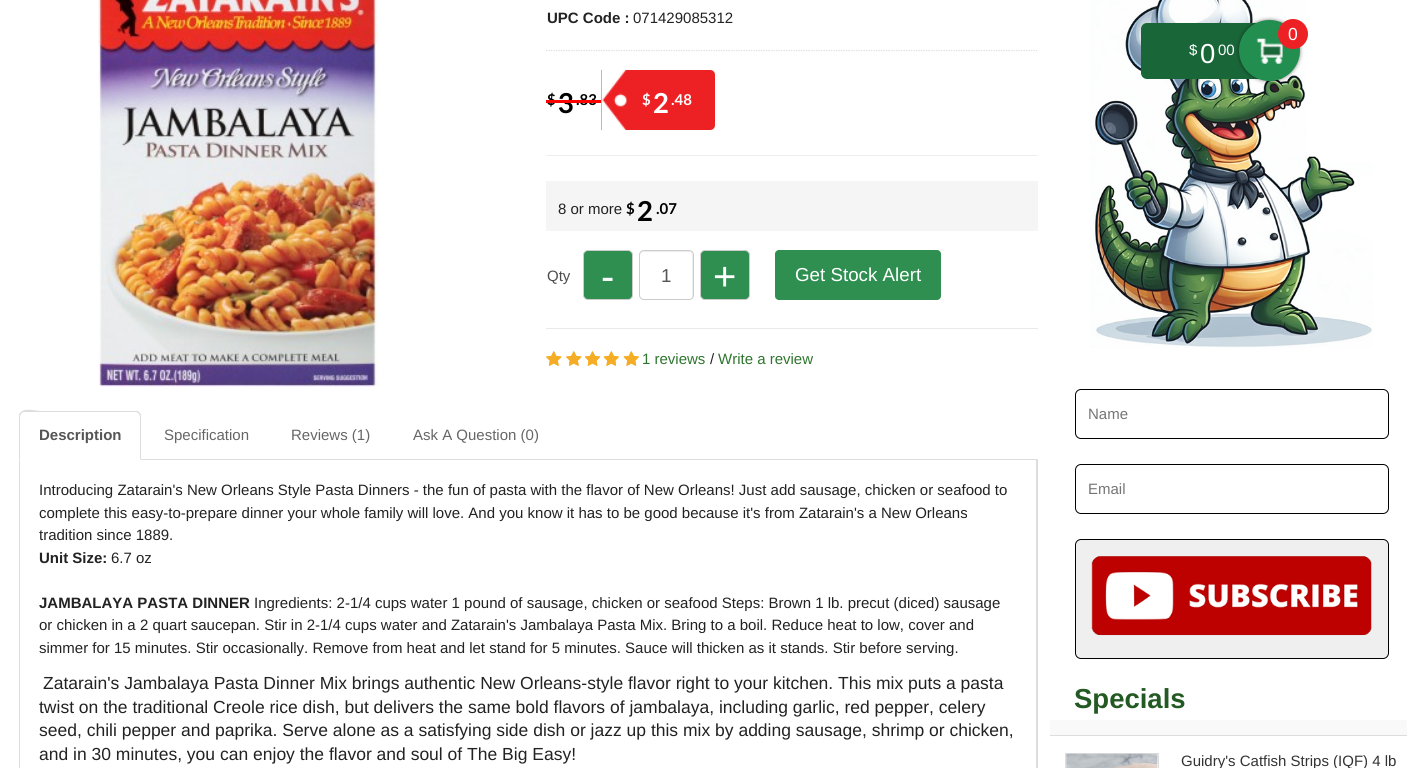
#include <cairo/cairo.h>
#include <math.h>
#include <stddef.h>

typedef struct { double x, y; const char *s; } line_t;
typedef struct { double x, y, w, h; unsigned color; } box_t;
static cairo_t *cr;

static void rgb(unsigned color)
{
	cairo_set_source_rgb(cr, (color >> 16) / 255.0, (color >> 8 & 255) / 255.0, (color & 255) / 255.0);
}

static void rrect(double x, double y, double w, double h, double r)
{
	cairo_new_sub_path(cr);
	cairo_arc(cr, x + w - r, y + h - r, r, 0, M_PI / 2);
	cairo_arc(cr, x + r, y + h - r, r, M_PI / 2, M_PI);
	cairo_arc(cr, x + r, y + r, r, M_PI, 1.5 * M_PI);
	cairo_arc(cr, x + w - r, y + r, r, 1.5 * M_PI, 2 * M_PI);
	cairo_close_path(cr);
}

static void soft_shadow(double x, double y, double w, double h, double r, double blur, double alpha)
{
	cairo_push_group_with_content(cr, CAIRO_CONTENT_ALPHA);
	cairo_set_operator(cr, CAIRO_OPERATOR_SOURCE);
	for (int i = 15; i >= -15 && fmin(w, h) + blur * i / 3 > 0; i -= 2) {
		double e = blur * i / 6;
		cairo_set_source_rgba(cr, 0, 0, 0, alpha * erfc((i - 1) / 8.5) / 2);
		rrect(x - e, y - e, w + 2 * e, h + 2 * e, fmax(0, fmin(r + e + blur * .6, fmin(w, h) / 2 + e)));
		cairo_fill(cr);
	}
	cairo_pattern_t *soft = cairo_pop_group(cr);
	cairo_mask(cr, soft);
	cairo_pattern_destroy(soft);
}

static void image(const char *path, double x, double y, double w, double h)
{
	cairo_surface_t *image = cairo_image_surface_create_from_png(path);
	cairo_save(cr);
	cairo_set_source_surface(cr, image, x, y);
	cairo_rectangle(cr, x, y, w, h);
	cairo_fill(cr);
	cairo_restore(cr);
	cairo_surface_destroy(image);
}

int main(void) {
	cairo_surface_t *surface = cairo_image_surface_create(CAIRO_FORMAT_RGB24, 1407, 768);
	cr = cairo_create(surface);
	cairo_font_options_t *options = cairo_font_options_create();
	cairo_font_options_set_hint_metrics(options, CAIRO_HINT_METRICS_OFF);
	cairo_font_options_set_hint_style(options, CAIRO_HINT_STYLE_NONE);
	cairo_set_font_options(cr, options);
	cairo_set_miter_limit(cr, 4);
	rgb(0xffffff);
	cairo_paint(cr);
	image("img/1.png", 98, 0, 282, 387);
	cairo_new_path(cr);
	cairo_move_to(cr, 546, 50.5);
	cairo_line_to(cr, 1037.5, 50.5);
	rgb(0xdddddd);
	cairo_set_line_width(cr, 1.2);
	cairo_set_dash(cr, (double[]){1.25, 1.25}, 2, 0);
	cairo_stroke(cr);
	rgb(0xed2124);
	cairo_new_path(cr);
	cairo_move_to(cr, 601, 70);
	cairo_line_to(cr, 710, 70);
	cairo_curve_to(cr, 713, 70, 715, 72, 715, 75);
	cairo_line_to(cr, 715, 125);
	cairo_curve_to(cr, 715, 128, 713, 130, 710, 130);
	cairo_line_to(cr, 601, 130);
	cairo_close_path(cr);
	cairo_fill(cr);
	image("img/2.png", 601, 70, 27, 60);
	{
		static const box_t items[] = {
			{546, 155, 492, 1, 0xeeeeee},
			{546, 181, 492, 50, 0xf5f5f5},
			{546, 328, 492, 1, 0xeae9e9},
		};
		for (size_t i = 0; i < sizeof items / sizeof *items; i++) {
			rgb(items[i].color);
			cairo_rectangle(cr, items[i].x, items[i].y, items[i].w, items[i].h);
			cairo_fill(cr);
		}
	}
	rgb(0x2f8f51);
	rrect(583.5, 250.5, 49, 49, 4.5);
	cairo_fill_preserve(cr);
	rgb(0xcccccc);
	cairo_set_line_width(cr, 1);
	cairo_set_dash(cr, NULL, 0, 0);
	cairo_stroke(cr);
	rgb(0xececec);
	cairo_new_path(cr);
	cairo_move_to(cr, 644, 252);
	cairo_line_to(cr, 690, 252);
	cairo_curve_to(cr, 693, 253, 692, 261, 692, 263);
	cairo_line_to(cr, 692, 298);
	cairo_curve_to(cr, 692, 297, 693, 296, 693, 295);
	cairo_line_to(cr, 693, 255);
	cairo_curve_to(cr, 693, 253, 691, 251, 689, 251);
	cairo_line_to(cr, 644, 251);
	cairo_curve_to(cr, 642, 251, 640, 253, 640, 255);
	cairo_line_to(cr, 640, 256);
	cairo_curve_to(cr, 640, 254, 642, 252, 644, 252);
	cairo_close_path(cr);
	cairo_fill(cr);
	rrect(639.5, 250.5, 54, 49, 4.5);
	rgb(0xcccccc);
	cairo_stroke(cr);
	rgb(0x2f8f51);
	rrect(700.5, 250.5, 49, 49, 4.5);
	cairo_fill_preserve(cr);
	rgb(0xcccccc);
	cairo_stroke(cr);
	rgb(0x2f8f51);
	rrect(775, 250, 166, 50, 4);
	cairo_fill(cr);
	image("img/3.png", 546, 351, 16, 15);
	image("img/4.png", 546, 351, 16, 15);
	image("img/3.png", 566, 351, 16, 15);
	image("img/4.png", 566, 351, 16, 15);
	image("img/5.png", 585, 351, 15, 15);
	image("img/6.png", 585, 351, 15, 15);
	image("img/7.png", 603, 351, 16, 15);
	image("img/8.png", 603, 351, 16, 15);
	image("img/7.png", 623, 351, 16, 15);
	image("img/8.png", 623, 351, 16, 15);
	rgb(0xdddddd);
	cairo_rectangle(cr, 141, 459, 897, 1);
	cairo_fill(cr);
	cairo_new_path(cr);
	cairo_move_to(cr, 24, 412);
	cairo_curve_to(cr, 23, 412, 22, 413, 21, 414);
	cairo_line_to(cr, 20, 413);
	cairo_curve_to(cr, 25, 407, 34, 411, 42, 411);
	cairo_line_to(cr, 138, 411);
	cairo_line_to(cr, 140, 413);
	cairo_line_to(cr, 139, 414);
	cairo_curve_to(cr, 138, 413, 137, 412, 136, 412);
	cairo_close_path(cr);
	cairo_fill(cr);
	cairo_new_path(cr);
	cairo_move_to(cr, 140, 413);
	cairo_curve_to(cr, 141, 413, 141, 415, 141, 416);
	cairo_line_to(cr, 141, 460);
	cairo_line_to(cr, 140, 459);
	cairo_line_to(cr, 140, 416);
	cairo_line_to(cr, 139, 414);
	cairo_close_path(cr);
	cairo_fill(cr);
	cairo_new_path(cr);
	cairo_move_to(cr, 19, 460);
	cairo_line_to(cr, 19, 416);
	cairo_curve_to(cr, 19, 415, 19, 413, 20, 413);
	cairo_line_to(cr, 21, 414);
	cairo_line_to(cr, 20, 416);
	cairo_line_to(cr, 20, 459);
	cairo_close_path(cr);
	cairo_fill(cr);
	cairo_set_fill_rule(cr, CAIRO_FILL_RULE_EVEN_ODD);
	cairo_new_path(cr);
	cairo_move_to(cr, 19, 460);
	cairo_line_to(cr, 1038, 460);
	cairo_line_to(cr, 1038, 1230);
	cairo_curve_to(cr, 1038, 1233, 1035, 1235, 1032, 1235);
	cairo_line_to(cr, 24, 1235);
	cairo_curve_to(cr, 21, 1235, 19, 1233, 19, 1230);
	cairo_close_path(cr);
	cairo_move_to(cr, 20, 460);
	cairo_line_to(cr, 1036, 460);
	cairo_line_to(cr, 1036, 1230);
	cairo_curve_to(cr, 1036, 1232, 1035, 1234, 1032, 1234);
	cairo_line_to(cr, 24, 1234);
	cairo_curve_to(cr, 22, 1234, 20, 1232, 20, 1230);
	cairo_close_path(cr);
	cairo_fill(cr);
	image("img/9.png", 1090, 0, 283, 348);
	rrect(1075.5, 389.5, 313, 49, 5.5);
	rgb(0x000000);
	cairo_stroke(cr);
	rrect(1075.5, 464.5, 313, 49, 5.5);
	cairo_stroke(cr);
	rgb(0xefefef);
	rrect(1075.5, 539.5, 313, 119, 5.5);
	cairo_fill_preserve(cr);
	rgb(0x000000);
	cairo_stroke(cr);
	image("img/10.png", 1091, 556, 281, 80);
	rgb(0xf9f9f9);
	cairo_rectangle(cr, 1050, 720, 357, 15);
	cairo_fill(cr);
	rgb(0xdddddd);
	cairo_rectangle(cr, 1050, 735, 357, 1);
	cairo_fill(cr);
	cairo_rectangle(cr, 1065.5, 753.5, 93, 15);
	cairo_stroke(cr);
	image("img/11.png", 1066, 753, 92, 15);
	rgb(0x196639);
	rrect(1141, 23, 144, 56, 6);
	cairo_fill(cr);
	rgb(0x000000);
	soft_shadow(1239, 20, 61, 61, 30.5, 2, 0.5);
	rgb(0x228f50);
	cairo_arc(cr, 1269.5, 50.5, 30.5, 0, 2 * M_PI);
	cairo_fill(cr);
	image("img/12.png", 1256, 38, 27, 26);
	rgb(0xed2124);
	cairo_arc(cr, 1293, 34, 15, 0, 2 * M_PI);
	cairo_fill(cr);
	cairo_select_font_face(cr, "Liberation Sans", CAIRO_FONT_SLANT_NORMAL, CAIRO_FONT_WEIGHT_BOLD);
	cairo_set_font_size(cr, 15);
	rgb(0x222222);
	cairo_move_to(cr, 547, 23);
	cairo_show_text(cr, "UPC Code :");
	cairo_select_font_face(cr, "Liberation Sans", CAIRO_FONT_SLANT_NORMAL, CAIRO_FONT_WEIGHT_NORMAL);
	cairo_move_to(cr, 633, 23);
	cairo_show_text(cr, "071429085312");
	cairo_select_font_face(cr, "Lato", CAIRO_FONT_SLANT_NORMAL, CAIRO_FONT_WEIGHT_BOLD);
	rgb(0x000000);
	cairo_move_to(cr, 547, 105);
	cairo_show_text(cr, "$");
	cairo_set_font_size(cr, 27.5);
	cairo_move_to(cr, 558, 113);
	cairo_show_text(cr, "3");
	cairo_set_font_size(cr, 15);
	cairo_move_to(cr, 576, 105);
	cairo_show_text(cr, ".83");
	rgb(0xff0000);
	cairo_rectangle(cr, 546, 100, 55, 3);
	cairo_fill(cr);
	rgb(0xffffff);
	cairo_move_to(cr, 642, 105);
	cairo_show_text(cr, "$");
	cairo_set_font_size(cr, 27.5);
	cairo_move_to(cr, 653, 113);
	cairo_show_text(cr, "2");
	cairo_set_font_size(cr, 15);
	cairo_move_to(cr, 671, 105);
	cairo_show_text(cr, ".48");
	cairo_select_font_face(cr, "Liberation Sans", CAIRO_FONT_SLANT_NORMAL, CAIRO_FONT_WEIGHT_NORMAL);
	rgb(0x222222);
	cairo_move_to(cr, 558, 214);
	cairo_show_text(cr, "8 or more");
	cairo_select_font_face(cr, "Lato", CAIRO_FONT_SLANT_NORMAL, CAIRO_FONT_WEIGHT_BOLD);
	rgb(0x000000);
	cairo_move_to(cr, 626, 214);
	cairo_show_text(cr, "$");
	cairo_set_font_size(cr, 27.5);
	cairo_move_to(cr, 637, 221);
	cairo_show_text(cr, "2");
	cairo_set_font_size(cr, 15);
	cairo_move_to(cr, 656, 214);
	cairo_show_text(cr, ".07");
	cairo_select_font_face(cr, "Liberation Sans", CAIRO_FONT_SLANT_NORMAL, CAIRO_FONT_WEIGHT_NORMAL);
	rgb(0x4d4d4d);
	cairo_move_to(cr, 547, 281);
	cairo_show_text(cr, "Qty");
	cairo_set_font_size(cr, 40);
	rgb(0xffffff);
	cairo_move_to(cr, 601, 290);
	cairo_show_text(cr, "-");
	cairo_set_font_size(cr, 18.75);
	rgb(0x555555);
	cairo_move_to(cr, 661, 282);
	cairo_show_text(cr, "1");
	cairo_set_font_size(cr, 40);
	rgb(0xffffff);
	cairo_move_to(cr, 713, 290);
	cairo_show_text(cr, "+");
	cairo_set_font_size(cr, 18.75);
	cairo_move_to(cr, 795, 281);
	cairo_show_text(cr, "Get Stock Alert");
	cairo_set_font_size(cr, 15);
	rgb(0x2e752e);
	cairo_move_to(cr, 642, 364);
	cairo_show_text(cr, "1 reviews");
	rgb(0x222222);
	cairo_move_to(cr, 710, 364);
	cairo_show_text(cr, "/");
	rgb(0x2e752e);
	cairo_move_to(cr, 718, 364);
	cairo_show_text(cr, "Write a review");
	cairo_select_font_face(cr, "Liberation Sans", CAIRO_FONT_SLANT_NORMAL, CAIRO_FONT_WEIGHT_BOLD);
	rgb(0x555555);
	cairo_move_to(cr, 39, 440);
	cairo_show_text(cr, "Description");
	cairo_select_font_face(cr, "Liberation Sans", CAIRO_FONT_SLANT_NORMAL, CAIRO_FONT_WEIGHT_NORMAL);
	rgb(0x666666);
	{
		static const line_t items[] = {
			{164, 440, "Specification"},
			{291, 440, "Reviews (1)"},
			{413, 440, "Ask A Question (0)"},
		};
		for (size_t i = 0; i < sizeof items / sizeof *items; i++) {
			cairo_move_to(cr, items[i].x, items[i].y);
			cairo_show_text(cr, items[i].s);
		}
	}
	rgb(0x222222);
	{
		static const line_t items[] = {
			{39, 495, "Introducing Zatarain's New Orleans Style Pasta Dinners - the fun of pasta with the flavor of New Orleans! Just add sausage, chicken or seafood to"},
			{39, 518, "complete this easy-to-prepare dinner your whole family will love. And you know it has to be good because it's from Zatarain's a New Orleans"},
			{39, 540, "tradition since 1889."},
		};
		for (size_t i = 0; i < sizeof items / sizeof *items; i++) {
			cairo_move_to(cr, items[i].x, items[i].y);
			cairo_show_text(cr, items[i].s);
		}
	}
	cairo_select_font_face(cr, "Liberation Sans", CAIRO_FONT_SLANT_NORMAL, CAIRO_FONT_WEIGHT_BOLD);
	cairo_move_to(cr, 39, 563);
	cairo_show_text(cr, "Unit Size:");
	cairo_select_font_face(cr, "Liberation Sans", CAIRO_FONT_SLANT_NORMAL, CAIRO_FONT_WEIGHT_NORMAL);
	cairo_move_to(cr, 111, 563);
	cairo_show_text(cr, "6.7 oz");
	cairo_select_font_face(cr, "Liberation Sans", CAIRO_FONT_SLANT_NORMAL, CAIRO_FONT_WEIGHT_BOLD);
	cairo_move_to(cr, 39, 608);
	cairo_show_text(cr, "JAMBALAYA PASTA DINNER");
	cairo_select_font_face(cr, "Liberation Sans", CAIRO_FONT_SLANT_NORMAL, CAIRO_FONT_WEIGHT_NORMAL);
	{
		static const line_t items[] = {
			{254, 608, "Ingredients: 2-1/4 cups water 1 pound of sausage, chicken or seafood Steps: Brown 1 lb. precut (diced) sausage"},
			{39, 630, "or chicken in a 2 quart saucepan. Stir in 2-1/4 cups water and Zatarain's Jambalaya Pasta Mix. Bring to a boil. Reduce heat to low, cover and"},
			{39, 653, "simmer for 15 minutes. Stir occasionally. Remove from heat and let stand for 5 minutes. Sauce will thicken as it stands. Stir before serving."},
		};
		for (size_t i = 0; i < sizeof items / sizeof *items; i++) {
			cairo_move_to(cr, items[i].x, items[i].y);
			cairo_show_text(cr, items[i].s);
		}
	}
	cairo_set_font_size(cr, 17.5);
	{
		static const line_t items[] = {
			{43, 689, "Zatarain's Jambalaya Pasta Dinner Mix brings authentic New Orleans-style flavor right to your kitchen. This mix puts a pasta"},
			{39, 713, "twist on the traditional Creole rice dish, but delivers the same bold flavors of jambalaya, including garlic, red pepper, celery"},
			{39, 736, "seed, chili pepper and paprika. Serve alone as a satisfying side dish or jazz up this mix by adding sausage, shrimp or chicken,"},
			{39, 760, "and in 30 minutes, you can enjoy the flavor and soul of The Big Easy!"},
		};
		for (size_t i = 0; i < sizeof items / sizeof *items; i++) {
			cairo_move_to(cr, items[i].x, items[i].y);
			cairo_show_text(cr, items[i].s);
		}
	}
	cairo_set_font_size(cr, 15);
	rgb(0x757575);
	cairo_move_to(cr, 1088, 419);
	cairo_show_text(cr, "Name");
	cairo_move_to(cr, 1088, 494);
	cairo_show_text(cr, "Email");
	cairo_select_font_face(cr, "Liberation Sans", CAIRO_FONT_SLANT_NORMAL, CAIRO_FONT_WEIGHT_BOLD);
	cairo_set_font_size(cr, 27.5);
	rgb(0x235923);
	cairo_move_to(cr, 1074, 708);
	cairo_show_text(cr, "Specials");
	cairo_select_font_face(cr, "Liberation Sans", CAIRO_FONT_SLANT_NORMAL, CAIRO_FONT_WEIGHT_NORMAL);
	cairo_set_font_size(cr, 15);
	rgb(0x333333);
	cairo_move_to(cr, 1181, 766);
	cairo_show_text(cr, "Guidry's Catfish Strips (IQF) 4 lb");
	cairo_set_font_size(cr, 17.5);
	rgb(0xffffff);
	cairo_move_to(cr, 1288, 40);
	cairo_show_text(cr, "0");
	cairo_set_font_size(cr, 15);
	cairo_move_to(cr, 1189, 55);
	cairo_show_text(cr, "$");
	cairo_set_font_size(cr, 27.5);
	cairo_move_to(cr, 1200, 63);
	cairo_show_text(cr, "0");
	cairo_set_font_size(cr, 15);
	cairo_move_to(cr, 1218, 55);
	cairo_show_text(cr, "00");
	cairo_surface_write_to_png(surface, "page.png");
	cairo_font_options_destroy(options);
	cairo_destroy(cr);
	cairo_surface_destroy(surface);
	return 0;
}
